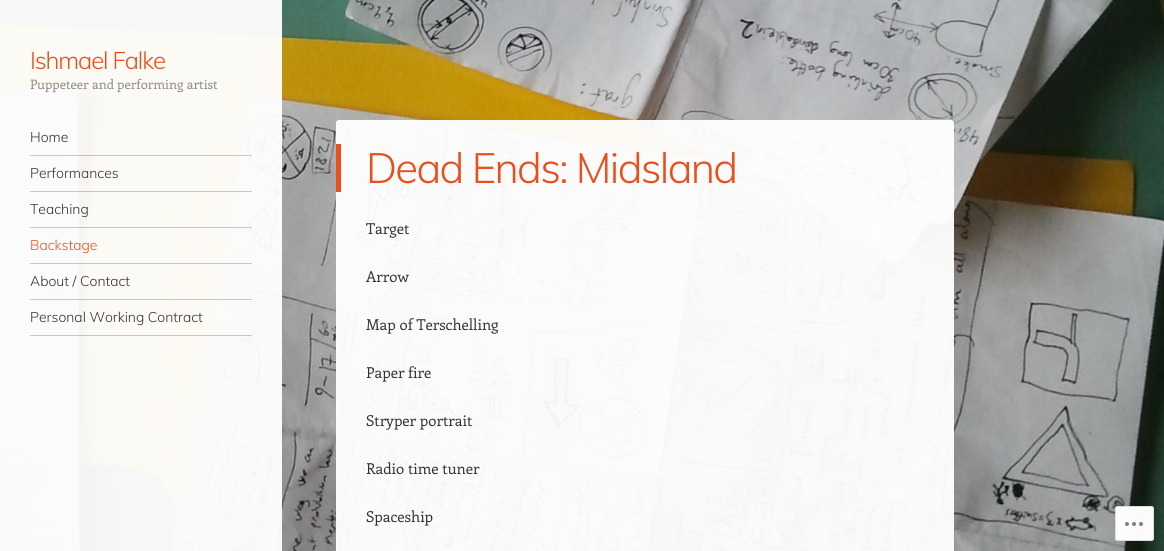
#include <cairo/cairo.h>
#include <math.h>
#include <stddef.h>

typedef struct { double x, y; const char *s; } line_t;
static cairo_t *cr;

static void rgb(unsigned color)
{
	cairo_set_source_rgb(cr, (color >> 16) / 255.0, (color >> 8 & 255) / 255.0, (color & 255) / 255.0);
}

static void tracked(double x, double y, const char *s, double letter, double word)
{
	cairo_move_to(cr, x, y);
	while (*s) {
		char ch[5] = {0};
		int n = 0;
		do ch[n++] = *s++; while ((*s & 0xC0) == 0x80);
		cairo_show_text(cr, ch);
		cairo_rel_move_to(cr, letter + word * (*ch == ' '), 0);
	}
}

static void rrect(double x, double y, double w, double h, double r)
{
	cairo_new_sub_path(cr);
	cairo_arc(cr, x + w - r, y + h - r, r, 0, M_PI / 2);
	cairo_arc(cr, x + r, y + h - r, r, M_PI / 2, M_PI);
	cairo_arc(cr, x + r, y + r, r, M_PI, 1.5 * M_PI);
	cairo_arc(cr, x + w - r, y + r, r, 1.5 * M_PI, 2 * M_PI);
	cairo_close_path(cr);
}

static void image(const char *path, double x, double y, double w, double h)
{
	cairo_surface_t *image = cairo_image_surface_create_from_png(path);
	cairo_save(cr);
	cairo_set_source_surface(cr, image, x, y);
	cairo_rectangle(cr, x, y, w, h);
	cairo_fill(cr);
	cairo_restore(cr);
	cairo_surface_destroy(image);
}

int main(void) {
	cairo_surface_t *surface = cairo_image_surface_create(CAIRO_FORMAT_RGB24, 1164, 551);
	cr = cairo_create(surface);
	cairo_font_options_t *options = cairo_font_options_create();
	cairo_font_options_set_hint_metrics(options, CAIRO_HINT_METRICS_OFF);
	cairo_font_options_set_hint_style(options, CAIRO_HINT_STYLE_NONE);
	cairo_set_font_options(cr, options);
	cairo_set_miter_limit(cr, 4);
	rgb(0xffffff);
	cairo_paint(cr);
	image("img/1.png", 0, 0, 1164, 551);
	cairo_set_source_rgba(cr, 1, 1, 1, 0.95);
	cairo_rectangle(cr, 0, 0, 282, 551);
	cairo_fill(cr);
	cairo_set_source_rgba(cr, 0, 0, 0, 0.2);
	cairo_rectangle(cr, 30, 155, 222, 1);
	cairo_fill(cr);
	cairo_rectangle(cr, 30, 191, 222, 1);
	cairo_fill(cr);
	cairo_rectangle(cr, 30, 227, 222, 1);
	cairo_fill(cr);
	cairo_rectangle(cr, 30, 263, 222, 1);
	cairo_fill(cr);
	cairo_rectangle(cr, 30, 299, 222, 1);
	cairo_fill(cr);
	cairo_rectangle(cr, 30, 335, 222, 1);
	cairo_fill(cr);
	cairo_set_source_rgba(cr, 1, 1, 1, 0.95);
	rrect(336, 120, 618, 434, 3);
	cairo_fill(cr);
	rgb(0xe94f1d);
	cairo_rectangle(cr, 336, 144, 5, 48);
	cairo_fill(cr);
	cairo_set_source_rgba(cr, 1, 1, 1, 0.98);
	rrect(1115, 506, 39, 35, 3);
	cairo_fill(cr);
	rrect(1115.5, 506.5, 38, 34, 2.5);
	cairo_set_source_rgba(cr, 0.863, 0.863, 0.871, 0.98);
	cairo_set_line_width(cr, 1);
	cairo_stroke(cr);
	image("img/2.png", 1125, 522, 18, 4);
	cairo_select_font_face(cr, "Muli Light", CAIRO_FONT_SLANT_NORMAL, CAIRO_FONT_WEIGHT_NORMAL);
	cairo_set_font_size(cr, 24);
	rgb(0xe94f1d);
	tracked(30, 69, "Ishmael Falke", -1.1, 0);
	cairo_select_font_face(cr, "Enriqueta", CAIRO_FONT_SLANT_NORMAL, CAIRO_FONT_WEIGHT_NORMAL);
	cairo_set_font_size(cr, 13);
	rgb(0x8c8885);
	cairo_move_to(cr, 30, 89);
	cairo_show_text(cr, "Puppeteer and performing artist");
	cairo_select_font_face(cr, "Muli Light", CAIRO_FONT_SLANT_NORMAL, CAIRO_FONT_WEIGHT_NORMAL);
	cairo_set_font_size(cr, 14);
	rgb(0x36312d);
	{
		static const line_t items[] = {
			{30, 142, "Home"},
			{30, 178, "Performances"},
			{30, 214, "Teaching"},
		};
		for (size_t i = 0; i < sizeof items / sizeof *items; i++) {
			cairo_move_to(cr, items[i].x, items[i].y);
			cairo_show_text(cr, items[i].s);
		}
	}
	rgb(0xe94f1d);
	cairo_move_to(cr, 30, 250);
	cairo_show_text(cr, "Backstage");
	rgb(0x36312d);
	cairo_move_to(cr, 30, 286);
	cairo_show_text(cr, "About / Contact");
	cairo_move_to(cr, 30, 322);
	cairo_show_text(cr, "Personal Working Contract");
	cairo_set_font_size(cr, 42);
	rgb(0xe94f1d);
	tracked(366, 183, "Dead Ends: Midsland", -1.7, 0);
	cairo_select_font_face(cr, "Enriqueta", CAIRO_FONT_SLANT_NORMAL, CAIRO_FONT_WEIGHT_NORMAL);
	cairo_set_font_size(cr, 15);
	rgb(0x36312d);
	{
		static const line_t items[] = {
			{366, 234, "Target"},
			{366, 282, "Arrow"},
			{366, 330, "Map of Terschelling"},
			{366, 378, "Paper fire"},
			{366, 426, "Stryper portrait"},
			{366, 474, "Radio time tuner"},
			{366, 522, "Spaceship"},
		};
		for (size_t i = 0; i < sizeof items / sizeof *items; i++) {
			cairo_move_to(cr, items[i].x, items[i].y);
			cairo_show_text(cr, items[i].s);
		}
	}
	cairo_surface_write_to_png(surface, "page.png");
	cairo_font_options_destroy(options);
	cairo_destroy(cr);
	cairo_surface_destroy(surface);
	return 0;
}
